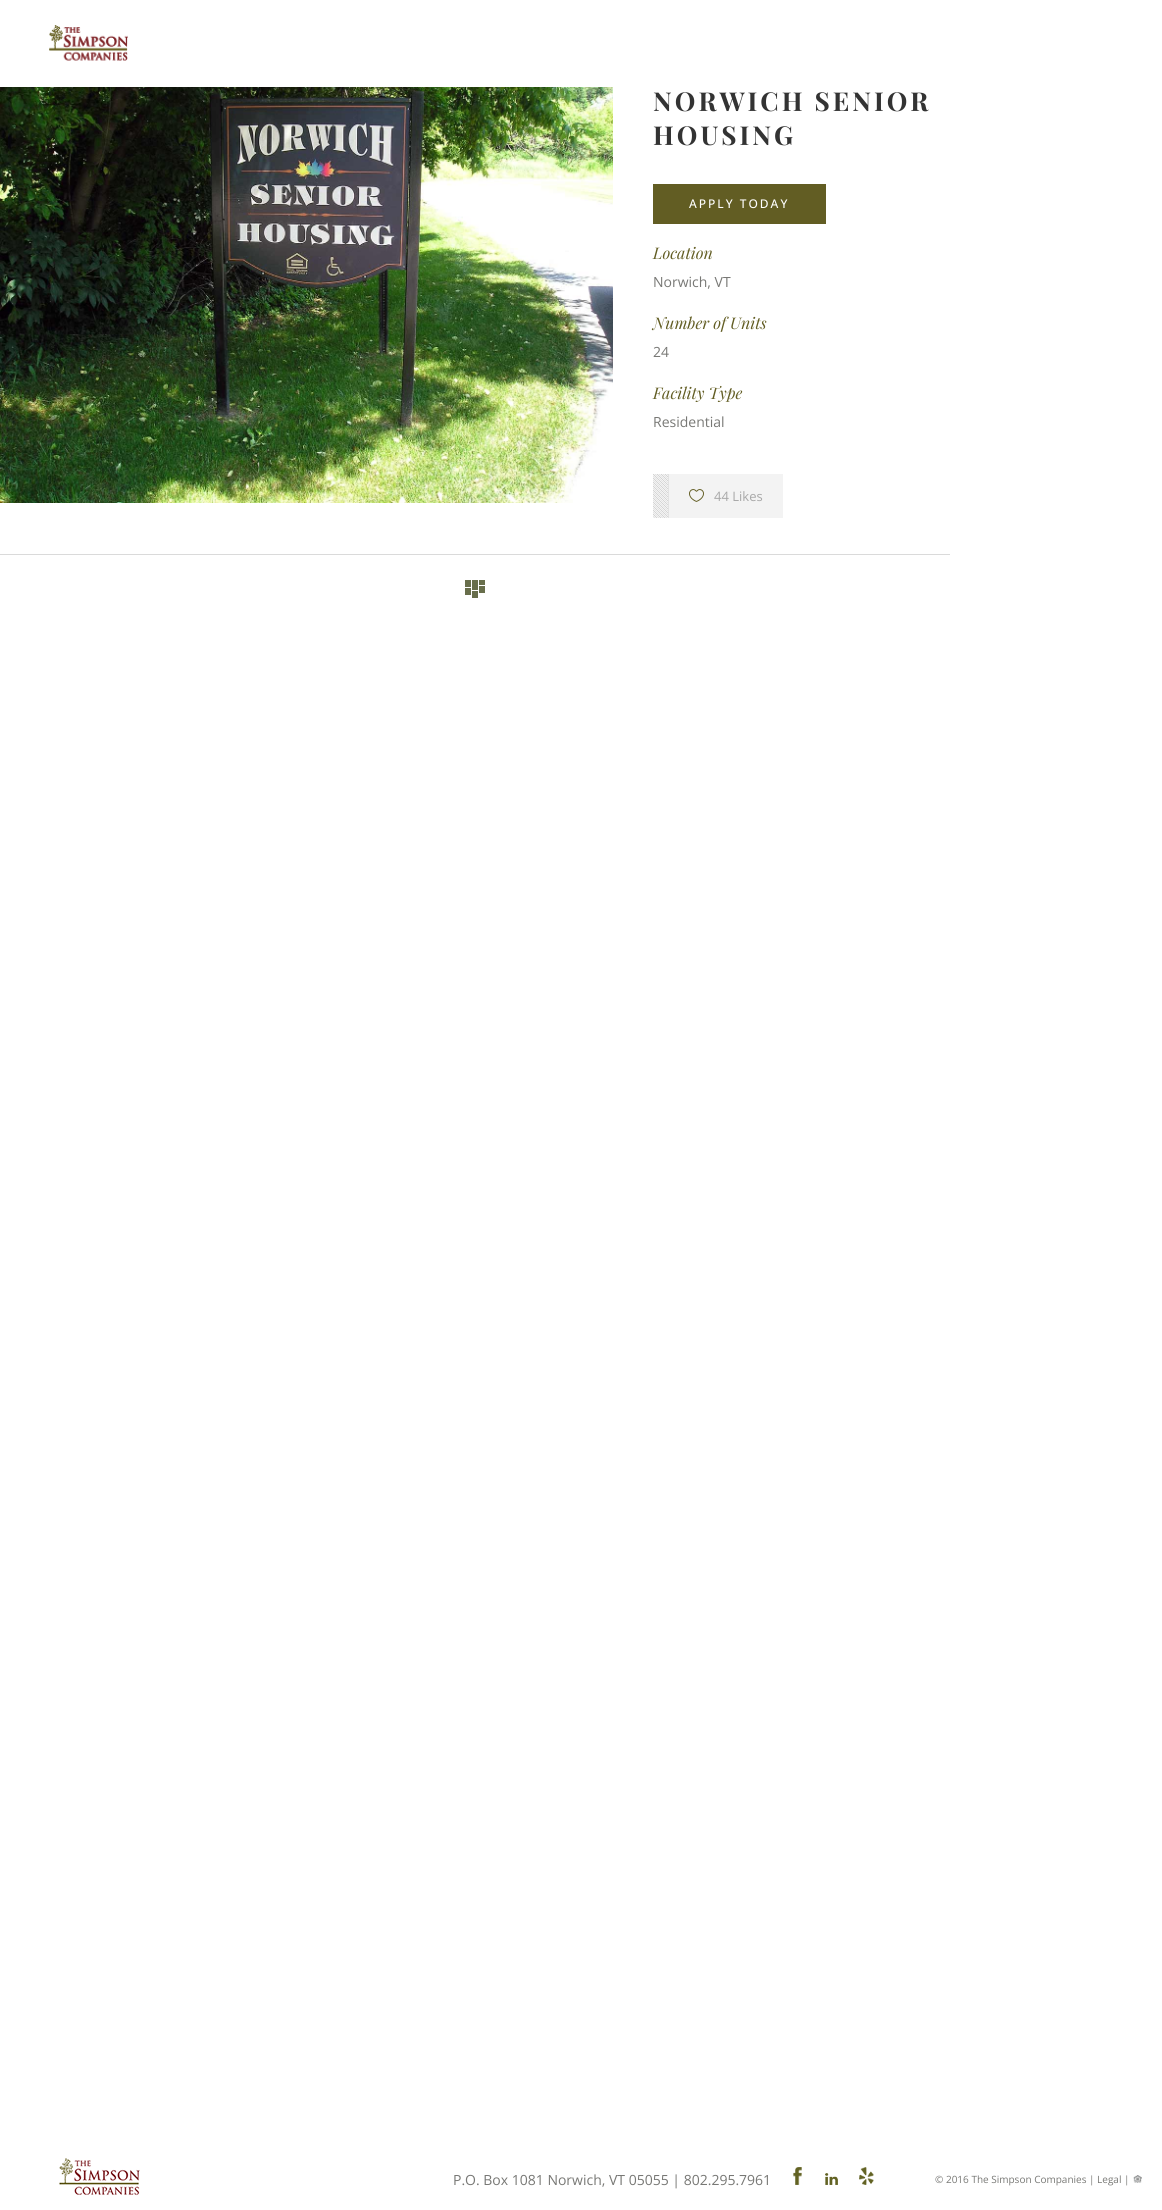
#include <cairo/cairo.h>
#include <math.h>
#include <stddef.h>

typedef struct { double x, y, w, h; unsigned color; } box_t;
static cairo_t *cr;

static void rgb(unsigned color)
{
	cairo_set_source_rgb(cr, (color >> 16) / 255.0, (color >> 8 & 255) / 255.0, (color & 255) / 255.0);
}

static void tracked(double x, double y, const char *s, double letter, double word)
{
	cairo_move_to(cr, x, y);
	while (*s) {
		char ch[5] = {0};
		int n = 0;
		do ch[n++] = *s++; while ((*s & 0xC0) == 0x80);
		cairo_show_text(cr, ch);
		cairo_rel_move_to(cr, letter + word * (*ch == ' '), 0);
	}
}

static void image(const char *path, double x, double y, double w, double h)
{
	cairo_surface_t *image = cairo_image_surface_create_from_png(path);
	cairo_save(cr);
	cairo_set_source_surface(cr, image, x, y);
	cairo_rectangle(cr, x, y, w, h);
	cairo_fill(cr);
	cairo_restore(cr);
	cairo_surface_destroy(image);
}

int main(void) {
	cairo_surface_t *surface = cairo_image_surface_create(CAIRO_FORMAT_RGB24, 1162, 2210);
	cr = cairo_create(surface);
	cairo_font_options_t *options = cairo_font_options_create();
	cairo_font_options_set_hint_metrics(options, CAIRO_HINT_METRICS_OFF);
	cairo_font_options_set_hint_style(options, CAIRO_HINT_STYLE_NONE);
	cairo_set_font_options(cr, options);
	cairo_set_miter_limit(cr, 4);
	rgb(0xffffff);
	cairo_paint(cr);
	image("img/1.png", 49, 25, 79, 36);
	image("img/2.png", 49, 25, 79, 36);
	image("img/3.png", 0, 87, 613, 416);
	rgb(0x625d23);
	cairo_rectangle(cr, 653, 184, 173, 40);
	cairo_fill(cr);
	rgb(0xf3f3f3);
	cairo_rectangle(cr, 653, 474, 130, 44);
	cairo_fill(cr);
	image("img/4.png", 653, 474, 15, 44);
	rgb(0xe2e2e2);
	cairo_rectangle(cr, 668, 474, 1, 44);
	cairo_fill(cr);
	image("img/5.png", 689, 489, 15, 13);
	{
		static const box_t items[] = {
			{0, 554, 950, 1, 0xdadada},
			{465, 580, 6, 7, 0x686e4b},
			{472, 580, 6, 10, 0x686e4b},
			{479, 580, 6, 5, 0x686e4b},
			{465, 588, 6, 7, 0x686e4b},
			{472, 591, 6, 7, 0x686e4b},
			{479, 586, 6, 7, 0x686e4b},
		};
		for (size_t i = 0; i < sizeof items / sizeof *items; i++) {
			rgb(items[i].color);
			cairo_rectangle(cr, items[i].x, items[i].y, items[i].w, items[i].h);
			cairo_fill(cr);
		}
	}
	image("img/6.png", 59, 2158, 81, 38);
	image("img/7.png", 793, 2167, 9, 18);
	image("img/8.png", 825, 2173, 13, 12);
	image("img/9.png", 859, 2167, 15, 18);
	image("img/10.png", 1133, 2175, 9, 8);
	cairo_select_font_face(cr, "Playfair Display", CAIRO_FONT_SLANT_NORMAL, CAIRO_FONT_WEIGHT_BOLD);
	cairo_set_font_size(cr, 26);
	rgb(0x333333);
	tracked(653, 111, "NORWICH SENIOR", 3, 0);
	tracked(653, 145, "HOUSING", 3, 0);
	cairo_select_font_face(cr, "Open Sans Medium", CAIRO_FONT_SLANT_NORMAL, CAIRO_FONT_WEIGHT_NORMAL);
	cairo_set_font_size(cr, 12);
	rgb(0xffffff);
	tracked(689, 208, "APPLY TODAY", 2, 0);
	cairo_select_font_face(cr, "Playfair Display", CAIRO_FONT_SLANT_ITALIC, CAIRO_FONT_WEIGHT_NORMAL);
	cairo_set_font_size(cr, 16);
	rgb(0x625d23);
	cairo_move_to(cr, 653, 259);
	cairo_show_text(cr, "Location");
	cairo_select_font_face(cr, "Open Sans", CAIRO_FONT_SLANT_NORMAL, CAIRO_FONT_WEIGHT_NORMAL);
	cairo_set_font_size(cr, 14);
	rgb(0x787875);
	cairo_move_to(cr, 653, 287);
	cairo_show_text(cr, "Norwich, VT");
	cairo_select_font_face(cr, "Playfair Display", CAIRO_FONT_SLANT_ITALIC, CAIRO_FONT_WEIGHT_NORMAL);
	cairo_set_font_size(cr, 16);
	rgb(0x625d23);
	cairo_move_to(cr, 653, 329);
	cairo_show_text(cr, "Number of Units");
	cairo_select_font_face(cr, "Open Sans", CAIRO_FONT_SLANT_NORMAL, CAIRO_FONT_WEIGHT_NORMAL);
	cairo_set_font_size(cr, 14);
	rgb(0x787875);
	cairo_move_to(cr, 653, 357);
	cairo_show_text(cr, "24");
	cairo_select_font_face(cr, "Playfair Display", CAIRO_FONT_SLANT_ITALIC, CAIRO_FONT_WEIGHT_NORMAL);
	cairo_set_font_size(cr, 16);
	rgb(0x625d23);
	cairo_move_to(cr, 653, 399);
	cairo_show_text(cr, "Facility Type");
	cairo_select_font_face(cr, "Open Sans", CAIRO_FONT_SLANT_NORMAL, CAIRO_FONT_WEIGHT_NORMAL);
	cairo_set_font_size(cr, 14);
	rgb(0x787875);
	cairo_move_to(cr, 653, 427);
	cairo_show_text(cr, "Residential");
	cairo_set_font_size(cr, 13);
	rgb(0xa8a8a8);
	cairo_move_to(cr, 714, 501);
	cairo_show_text(cr, "44 Likes");
	cairo_set_font_size(cr, 14);
	rgb(0x787875);
	cairo_move_to(cr, 453, 2185);
	cairo_show_text(cr, "P.O. Box 1081 Norwich, VT 05055 | 802.295.7961");
	cairo_set_font_size(cr, 10);
	cairo_move_to(cr, 935, 2183);
	cairo_show_text(cr, "© 2016 The Simpson Companies | Legal |");
	cairo_surface_write_to_png(surface, "page.png");
	cairo_font_options_destroy(options);
	cairo_destroy(cr);
	cairo_surface_destroy(surface);
	return 0;
}
